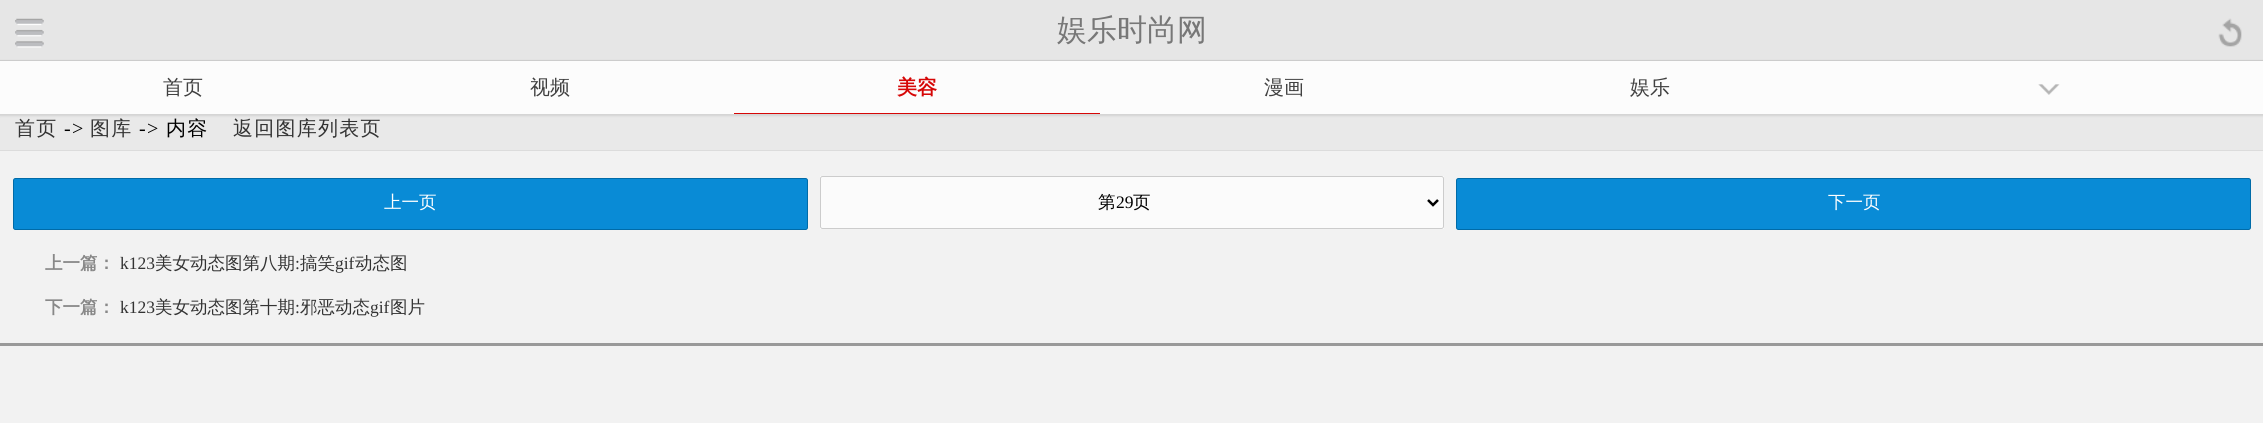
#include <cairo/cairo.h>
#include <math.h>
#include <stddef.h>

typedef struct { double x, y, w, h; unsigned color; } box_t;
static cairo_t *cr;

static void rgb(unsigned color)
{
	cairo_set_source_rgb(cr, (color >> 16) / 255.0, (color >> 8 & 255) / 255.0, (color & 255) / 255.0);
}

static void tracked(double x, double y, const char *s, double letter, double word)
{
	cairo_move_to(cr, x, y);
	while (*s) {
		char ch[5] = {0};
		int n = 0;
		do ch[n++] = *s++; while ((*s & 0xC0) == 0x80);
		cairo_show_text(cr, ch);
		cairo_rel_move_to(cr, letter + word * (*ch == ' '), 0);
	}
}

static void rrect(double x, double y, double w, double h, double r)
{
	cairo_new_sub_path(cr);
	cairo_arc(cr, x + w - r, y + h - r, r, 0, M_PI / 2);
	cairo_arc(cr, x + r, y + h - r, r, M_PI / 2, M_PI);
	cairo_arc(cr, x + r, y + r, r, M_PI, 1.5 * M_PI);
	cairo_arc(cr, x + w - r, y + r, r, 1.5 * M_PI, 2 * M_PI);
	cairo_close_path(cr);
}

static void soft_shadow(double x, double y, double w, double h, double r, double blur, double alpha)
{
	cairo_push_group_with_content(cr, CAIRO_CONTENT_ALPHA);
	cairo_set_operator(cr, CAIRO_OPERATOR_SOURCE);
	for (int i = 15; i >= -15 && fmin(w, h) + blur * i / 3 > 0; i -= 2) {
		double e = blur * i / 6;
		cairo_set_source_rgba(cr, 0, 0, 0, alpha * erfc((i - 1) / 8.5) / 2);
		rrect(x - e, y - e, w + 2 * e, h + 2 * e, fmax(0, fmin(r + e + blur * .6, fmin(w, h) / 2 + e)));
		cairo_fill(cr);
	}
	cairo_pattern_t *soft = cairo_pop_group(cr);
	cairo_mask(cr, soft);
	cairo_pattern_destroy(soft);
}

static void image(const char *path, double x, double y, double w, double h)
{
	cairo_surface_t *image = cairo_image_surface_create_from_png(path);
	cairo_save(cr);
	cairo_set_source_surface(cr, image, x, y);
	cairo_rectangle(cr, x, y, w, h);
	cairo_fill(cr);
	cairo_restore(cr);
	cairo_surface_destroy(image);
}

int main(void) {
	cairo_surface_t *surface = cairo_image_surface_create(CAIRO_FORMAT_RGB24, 2263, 423);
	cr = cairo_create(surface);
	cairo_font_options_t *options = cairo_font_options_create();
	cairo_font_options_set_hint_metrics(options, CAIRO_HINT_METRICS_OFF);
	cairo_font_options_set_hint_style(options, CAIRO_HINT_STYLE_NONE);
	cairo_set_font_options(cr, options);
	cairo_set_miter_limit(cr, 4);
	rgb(0xf2f2f2);
	cairo_paint(cr);
	rgb(0xe6e6e6);
	cairo_rectangle(cr, 0, 0, 2263, 60);
	cairo_fill(cr);
	image("img/1.png", 15, 18, 29, 30);
	image("img/2.png", 2218, 18, 24, 29);
	rgb(0xe9e9e9);
	cairo_rectangle(cr, 0, 115, 2263, 35);
	cairo_fill(cr);
	rgb(0x000000);
	soft_shadow(0, 61, 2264, 55, 0, 1, 0.1);
	{
		static const box_t items[] = {
			{0, 61, 2263, 53, 0xfcfcfc},
			{0, 60, 2263, 1, 0xcccccc},
			{0, 114, 2263, 1, 0xd5d5d5},
			{734, 113, 366, 1, 0xd60707},
		};
		for (size_t i = 0; i < sizeof items / sizeof *items; i++) {
			rgb(items[i].color);
			cairo_rectangle(cr, items[i].x, items[i].y, items[i].w, items[i].h);
			cairo_fill(cr);
		}
	}
	image("img/3.png", 2038, 84, 22, 11);
	rgb(0x999999);
	cairo_rectangle(cr, 0, 343, 2263, 3);
	cairo_fill(cr);
	rgb(0xdcdcdc);
	cairo_rectangle(cr, 0, 150, 2263, 1);
	cairo_fill(cr);
	rgb(0x098bd6);
	rrect(13.5, 178.5, 794, 51, 2);
	cairo_fill_preserve(cr);
	rgb(0x006ba8);
	cairo_set_line_width(cr, 1);
	cairo_stroke(cr);
	rgb(0xffffff);
	cairo_rectangle(cr, 820, 176, 624, 53);
	cairo_fill(cr);
	rgb(0xfbfbfb);
	rrect(820.5, 176.5, 623, 52, 2);
	cairo_fill_preserve(cr);
	rgb(0xcccccc);
	cairo_stroke(cr);
	cairo_new_path(cr);
	cairo_move_to(cr, 1428, 200);
	cairo_line_to(cr, 1433, 205);
	cairo_line_to(cr, 1438, 200);
	rgb(0x000000);
	cairo_set_line_width(cr, 2.5);
	cairo_stroke(cr);
	rgb(0x098bd6);
	rrect(1456.5, 178.5, 794, 51, 2);
	cairo_fill_preserve(cr);
	rgb(0x006ba8);
	cairo_set_line_width(cr, 1);
	cairo_stroke(cr);
	cairo_select_font_face(cr, "WenQuanYi Zen Hei Medium", CAIRO_FONT_SLANT_NORMAL, CAIRO_FONT_WEIGHT_NORMAL);
	cairo_set_font_size(cr, 30);
	rgb(0x777777);
	cairo_move_to(cr, 1057, 40);
	cairo_show_text(cr, "娱乐时尚网");
	cairo_set_font_size(cr, 20);
	rgb(0x404040);
	cairo_move_to(cr, 163, 94);
	cairo_show_text(cr, "首页");
	cairo_move_to(cr, 530, 94);
	cairo_show_text(cr, "视频");
	cairo_select_font_face(cr, "WenQuanYi Zen Hei", CAIRO_FONT_SLANT_NORMAL, CAIRO_FONT_WEIGHT_BOLD);
	rgb(0xd60707);
	cairo_move_to(cr, 897, 94);
	cairo_show_text(cr, "美容");
	cairo_select_font_face(cr, "WenQuanYi Zen Hei Medium", CAIRO_FONT_SLANT_NORMAL, CAIRO_FONT_WEIGHT_NORMAL);
	rgb(0x404040);
	cairo_move_to(cr, 1264, 94);
	cairo_show_text(cr, "漫画");
	cairo_move_to(cr, 1630, 94);
	cairo_show_text(cr, "娱乐");
	rgb(0x333333);
	tracked(15, 135, "首页", 1.25, 0);
	cairo_select_font_face(cr, "Liberation Serif", CAIRO_FONT_SLANT_NORMAL, CAIRO_FONT_WEIGHT_NORMAL);
	rgb(0x000000);
	tracked(64, 135, "->", 1.25, 0);
	cairo_select_font_face(cr, "WenQuanYi Zen Hei Medium", CAIRO_FONT_SLANT_NORMAL, CAIRO_FONT_WEIGHT_NORMAL);
	rgb(0x333333);
	tracked(90, 135, "图库", 1.25, 0);
	cairo_select_font_face(cr, "Liberation Serif", CAIRO_FONT_SLANT_NORMAL, CAIRO_FONT_WEIGHT_NORMAL);
	rgb(0x000000);
	tracked(139, 135, "->", 1.25, 0);
	cairo_select_font_face(cr, "WenQuanYi Zen Hei Medium", CAIRO_FONT_SLANT_NORMAL, CAIRO_FONT_WEIGHT_NORMAL);
	tracked(166, 135, "内容", 1.25, 0);
	rgb(0x333333);
	tracked(233, 135, "返回图库列表页", 1.25, 0);
	cairo_set_font_size(cr, 17.5);
	rgb(0xffffff);
	cairo_move_to(cr, 384, 208);
	cairo_show_text(cr, "上一页");
	rgb(0x000000);
	cairo_move_to(cr, 1098, 208);
	cairo_show_text(cr, "第");
	cairo_select_font_face(cr, "Liberation Serif", CAIRO_FONT_SLANT_NORMAL, CAIRO_FONT_WEIGHT_NORMAL);
	cairo_move_to(cr, 1116, 208);
	cairo_show_text(cr, "29");
	cairo_select_font_face(cr, "WenQuanYi Zen Hei Medium", CAIRO_FONT_SLANT_NORMAL, CAIRO_FONT_WEIGHT_NORMAL);
	cairo_move_to(cr, 1133, 208);
	cairo_show_text(cr, "页");
	rgb(0xffffff);
	cairo_move_to(cr, 1828, 208);
	cairo_show_text(cr, "下一页");
	cairo_select_font_face(cr, "WenQuanYi Zen Hei", CAIRO_FONT_SLANT_NORMAL, CAIRO_FONT_WEIGHT_BOLD);
	rgb(0x888888);
	cairo_move_to(cr, 45, 269);
	cairo_show_text(cr, "上一篇：");
	cairo_select_font_face(cr, "Liberation Serif", CAIRO_FONT_SLANT_NORMAL, CAIRO_FONT_WEIGHT_NORMAL);
	rgb(0x333333);
	cairo_move_to(cr, 120, 269);
	cairo_show_text(cr, "k123");
	cairo_select_font_face(cr, "WenQuanYi Zen Hei Medium", CAIRO_FONT_SLANT_NORMAL, CAIRO_FONT_WEIGHT_NORMAL);
	cairo_move_to(cr, 155, 269);
	cairo_show_text(cr, "美女动态图第八期");
	cairo_select_font_face(cr, "Liberation Serif", CAIRO_FONT_SLANT_NORMAL, CAIRO_FONT_WEIGHT_NORMAL);
	cairo_move_to(cr, 295, 269);
	cairo_show_text(cr, ":");
	cairo_select_font_face(cr, "WenQuanYi Zen Hei Medium", CAIRO_FONT_SLANT_NORMAL, CAIRO_FONT_WEIGHT_NORMAL);
	cairo_move_to(cr, 300, 269);
	cairo_show_text(cr, "搞笑");
	cairo_select_font_face(cr, "Liberation Serif", CAIRO_FONT_SLANT_NORMAL, CAIRO_FONT_WEIGHT_NORMAL);
	cairo_move_to(cr, 335, 269);
	cairo_show_text(cr, "gif");
	cairo_select_font_face(cr, "WenQuanYi Zen Hei Medium", CAIRO_FONT_SLANT_NORMAL, CAIRO_FONT_WEIGHT_NORMAL);
	cairo_move_to(cr, 355, 269);
	cairo_show_text(cr, "动态图");
	cairo_select_font_face(cr, "WenQuanYi Zen Hei", CAIRO_FONT_SLANT_NORMAL, CAIRO_FONT_WEIGHT_BOLD);
	rgb(0x888888);
	cairo_move_to(cr, 45, 313);
	cairo_show_text(cr, "下一篇：");
	cairo_select_font_face(cr, "Liberation Serif", CAIRO_FONT_SLANT_NORMAL, CAIRO_FONT_WEIGHT_NORMAL);
	rgb(0x333333);
	cairo_move_to(cr, 120, 313);
	cairo_show_text(cr, "k123");
	cairo_select_font_face(cr, "WenQuanYi Zen Hei Medium", CAIRO_FONT_SLANT_NORMAL, CAIRO_FONT_WEIGHT_NORMAL);
	cairo_move_to(cr, 155, 313);
	cairo_show_text(cr, "美女动态图第十期");
	cairo_select_font_face(cr, "Liberation Serif", CAIRO_FONT_SLANT_NORMAL, CAIRO_FONT_WEIGHT_NORMAL);
	cairo_move_to(cr, 295, 313);
	cairo_show_text(cr, ":");
	cairo_select_font_face(cr, "WenQuanYi Zen Hei Medium", CAIRO_FONT_SLANT_NORMAL, CAIRO_FONT_WEIGHT_NORMAL);
	cairo_move_to(cr, 300, 313);
	cairo_show_text(cr, "邪恶动态");
	cairo_select_font_face(cr, "Liberation Serif", CAIRO_FONT_SLANT_NORMAL, CAIRO_FONT_WEIGHT_NORMAL);
	cairo_move_to(cr, 370, 313);
	cairo_show_text(cr, "gif");
	cairo_select_font_face(cr, "WenQuanYi Zen Hei Medium", CAIRO_FONT_SLANT_NORMAL, CAIRO_FONT_WEIGHT_NORMAL);
	cairo_move_to(cr, 390, 313);
	cairo_show_text(cr, "图片");
	cairo_surface_write_to_png(surface, "page.png");
	cairo_font_options_destroy(options);
	cairo_destroy(cr);
	cairo_surface_destroy(surface);
	return 0;
}
